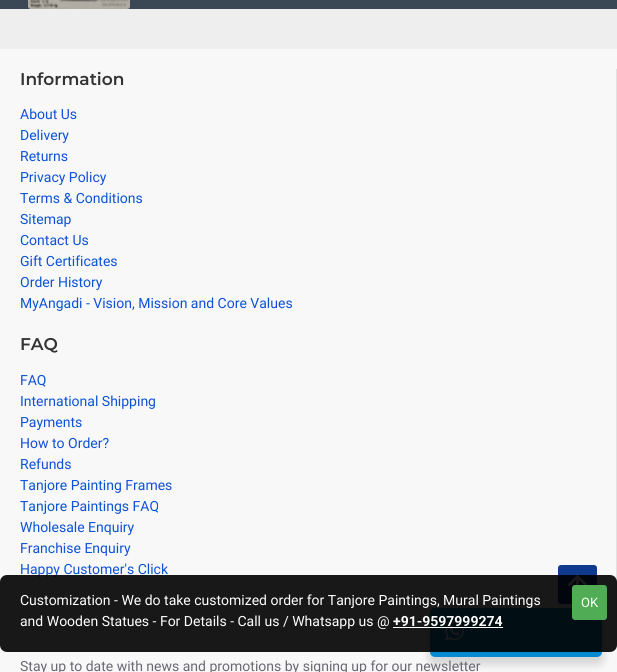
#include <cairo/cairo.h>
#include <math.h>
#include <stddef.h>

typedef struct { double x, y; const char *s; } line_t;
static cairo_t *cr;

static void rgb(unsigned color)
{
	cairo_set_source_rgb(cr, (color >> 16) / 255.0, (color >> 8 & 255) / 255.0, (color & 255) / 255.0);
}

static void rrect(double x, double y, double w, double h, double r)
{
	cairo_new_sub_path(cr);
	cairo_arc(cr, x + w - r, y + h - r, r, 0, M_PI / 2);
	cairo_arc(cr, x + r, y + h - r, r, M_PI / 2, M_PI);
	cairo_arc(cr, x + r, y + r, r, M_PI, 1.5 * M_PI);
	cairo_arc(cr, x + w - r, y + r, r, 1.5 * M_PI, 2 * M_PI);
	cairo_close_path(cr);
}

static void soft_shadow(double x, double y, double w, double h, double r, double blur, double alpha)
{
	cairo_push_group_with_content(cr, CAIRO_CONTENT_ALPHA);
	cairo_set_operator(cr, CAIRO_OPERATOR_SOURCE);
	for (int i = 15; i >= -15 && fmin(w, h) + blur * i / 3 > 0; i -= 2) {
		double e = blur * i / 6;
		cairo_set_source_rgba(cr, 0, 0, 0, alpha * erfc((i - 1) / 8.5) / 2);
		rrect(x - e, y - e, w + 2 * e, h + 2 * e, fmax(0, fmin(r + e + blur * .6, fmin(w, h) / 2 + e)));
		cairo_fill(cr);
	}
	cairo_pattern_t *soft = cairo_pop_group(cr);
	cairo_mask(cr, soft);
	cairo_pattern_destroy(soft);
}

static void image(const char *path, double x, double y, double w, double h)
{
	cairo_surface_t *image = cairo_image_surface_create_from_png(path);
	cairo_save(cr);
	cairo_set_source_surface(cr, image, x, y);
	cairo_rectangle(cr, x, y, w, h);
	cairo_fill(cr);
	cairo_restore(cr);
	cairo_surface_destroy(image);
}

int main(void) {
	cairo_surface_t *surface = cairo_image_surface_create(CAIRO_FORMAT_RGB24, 617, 672);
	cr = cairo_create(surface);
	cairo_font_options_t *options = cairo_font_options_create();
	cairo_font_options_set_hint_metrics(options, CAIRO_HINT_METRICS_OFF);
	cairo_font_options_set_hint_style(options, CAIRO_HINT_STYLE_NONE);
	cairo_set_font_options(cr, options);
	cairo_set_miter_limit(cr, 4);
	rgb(0xf8f8f8);
	cairo_paint(cr);
	rgb(0x3a4754);
	cairo_rectangle(cr, 0, 0, 617, 9);
	cairo_fill(cr);
	image("img/1.png", 28, 0, 102, 9);
	rgb(0xeeeeee);
	cairo_rectangle(cr, 0, 9, 617, 40);
	cairo_fill(cr);
	rgb(0xe2e2e2);
	cairo_rectangle(cr, 616, 69, 1, 552);
	cairo_fill(cr);
	rgb(0x000000);
	soft_shadow(428, 612, 176, 53, 7, 4, 0.14);
	rgb(0x078ad1);
	rrect(430, 608, 172, 49, 5);
	cairo_fill(cr);
	image("img/2.png", 445, 621, 19, 20);
	rgb(0x0f3a8d);
	rrect(558, 565, 39, 39, 3);
	cairo_fill(cr);
	image("img/3.png", 567, 574, 21, 13);
	cairo_select_font_face(cr, "Montserrat SemiBold", CAIRO_FONT_SLANT_NORMAL, CAIRO_FONT_WEIGHT_NORMAL);
	cairo_set_font_size(cr, 17);
	rgb(0x333333);
	cairo_move_to(cr, 20, 85);
	cairo_show_text(cr, "Information");
	cairo_select_font_face(cr, "Roboto", CAIRO_FONT_SLANT_NORMAL, CAIRO_FONT_WEIGHT_NORMAL);
	cairo_set_font_size(cr, 14);
	rgb(0x0d52d6);
	{
		static const line_t items[] = {
			{20, 119, "About Us"},
			{20, 140, "Delivery"},
			{20, 161, "Returns"},
			{20, 182, "Privacy Policy"},
			{20, 203, "Terms & Conditions"},
			{20, 224, "Sitemap"},
			{20, 245, "Contact Us"},
			{20, 266, "Gift Certificates"},
			{20, 287, "Order History"},
			{20, 308, "MyAngadi - Vision, Mission and Core Values"},
		};
		for (size_t i = 0; i < sizeof items / sizeof *items; i++) {
			cairo_move_to(cr, items[i].x, items[i].y);
			cairo_show_text(cr, items[i].s);
		}
	}
	cairo_select_font_face(cr, "Montserrat SemiBold", CAIRO_FONT_SLANT_NORMAL, CAIRO_FONT_WEIGHT_NORMAL);
	cairo_set_font_size(cr, 17);
	rgb(0x333333);
	cairo_move_to(cr, 20, 350);
	cairo_show_text(cr, "FAQ");
	cairo_select_font_face(cr, "Roboto", CAIRO_FONT_SLANT_NORMAL, CAIRO_FONT_WEIGHT_NORMAL);
	cairo_set_font_size(cr, 14);
	rgb(0x0d52d6);
	{
		static const line_t items[] = {
			{20, 385, "FAQ"},
			{20, 406, "International Shipping"},
			{20, 427, "Payments"},
			{20, 448, "How to Order?"},
			{20, 469, "Refunds"},
			{20, 490, "Tanjore Painting Frames"},
			{20, 511, "Tanjore Paintings FAQ"},
			{20, 532, "Wholesale Enquiry"},
			{20, 553, "Franchise Enquiry"},
			{20, 574, "Happy Customer's Click"},
		};
		for (size_t i = 0; i < sizeof items / sizeof *items; i++) {
			cairo_move_to(cr, items[i].x, items[i].y);
			cairo_show_text(cr, items[i].s);
		}
	}
	rgb(0x696973);
	cairo_move_to(cr, 20, 671);
	cairo_show_text(cr, "Stay up to date with news and promotions by signing up for our newsletter");
	cairo_set_source_rgba(cr, 0, 0, 0, 0.9);
	rrect(0, 575, 617, 77, 7);
	cairo_fill(cr);
	rgb(0xffffff);
	cairo_move_to(cr, 20, 605);
	cairo_show_text(cr, "Customization - We do take customized order for Tanjore Paintings, Mural Paintings");
	cairo_move_to(cr, 20, 626);
	cairo_show_text(cr, "and Wooden Statues - For Details - Call us / Whatsapp us @");
	cairo_select_font_face(cr, "Roboto", CAIRO_FONT_SLANT_NORMAL, CAIRO_FONT_WEIGHT_BOLD);
	cairo_move_to(cr, 393, 626);
	cairo_show_text(cr, "+91-9597999274");
	cairo_rectangle(cr, 393, 627, 110, 1);
	cairo_fill(cr);
	rgb(0x50ad55);
	rrect(572, 585, 35, 35, 3);
	cairo_fill(cr);
	cairo_select_font_face(cr, "Roboto", CAIRO_FONT_SLANT_NORMAL, CAIRO_FONT_WEIGHT_NORMAL);
	cairo_set_font_size(cr, 13);
	rgb(0xffffff);
	cairo_move_to(cr, 581, 607);
	cairo_show_text(cr, "OK");
	cairo_surface_write_to_png(surface, "page.png");
	cairo_font_options_destroy(options);
	cairo_destroy(cr);
	cairo_surface_destroy(surface);
	return 0;
}
